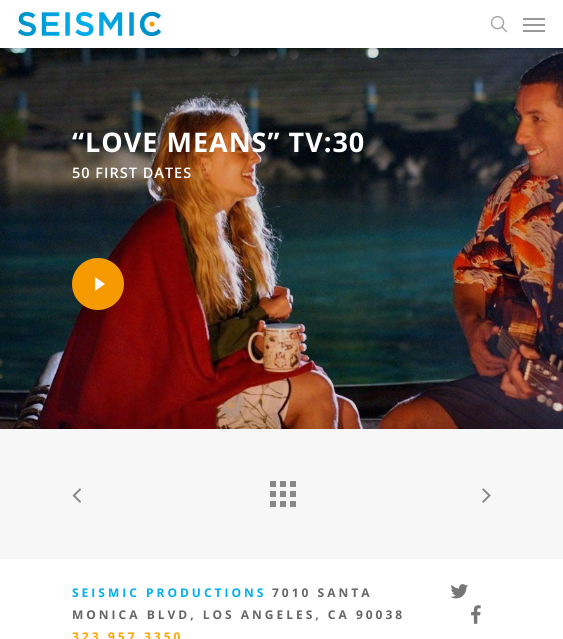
#include <cairo/cairo.h>
#include <math.h>
#include <stddef.h>

typedef struct { double x, y, w, h; unsigned color; } box_t;
static cairo_t *cr;

static void rgb(unsigned color)
{
	cairo_set_source_rgb(cr, (color >> 16) / 255.0, (color >> 8 & 255) / 255.0, (color & 255) / 255.0);
}

static void tracked(double x, double y, const char *s, double letter, double word)
{
	cairo_move_to(cr, x, y);
	while (*s) {
		char ch[5] = {0};
		int n = 0;
		do ch[n++] = *s++; while ((*s & 0xC0) == 0x80);
		cairo_show_text(cr, ch);
		cairo_rel_move_to(cr, letter + word * (*ch == ' '), 0);
	}
}

static void rrect(double x, double y, double w, double h, double r)
{
	cairo_new_sub_path(cr);
	cairo_arc(cr, x + w - r, y + h - r, r, 0, M_PI / 2);
	cairo_arc(cr, x + r, y + h - r, r, M_PI / 2, M_PI);
	cairo_arc(cr, x + r, y + r, r, M_PI, 1.5 * M_PI);
	cairo_arc(cr, x + w - r, y + r, r, 1.5 * M_PI, 2 * M_PI);
	cairo_close_path(cr);
}

static void soft_shadow(double x, double y, double w, double h, double r, double blur, double alpha)
{
	cairo_push_group_with_content(cr, CAIRO_CONTENT_ALPHA);
	cairo_set_operator(cr, CAIRO_OPERATOR_SOURCE);
	for (int i = 15; i >= -15 && fmin(w, h) + blur * i / 3 > 0; i -= 2) {
		double e = blur * i / 6;
		cairo_set_source_rgba(cr, 0, 0, 0, alpha * erfc((i - 1) / 8.5) / 2);
		rrect(x - e, y - e, w + 2 * e, h + 2 * e, fmax(0, fmin(r + e + blur * .6, fmin(w, h) / 2 + e)));
		cairo_fill(cr);
	}
	cairo_pattern_t *soft = cairo_pop_group(cr);
	cairo_mask(cr, soft);
	cairo_pattern_destroy(soft);
}

static void image(const char *path, double x, double y, double w, double h)
{
	cairo_surface_t *image = cairo_image_surface_create_from_png(path);
	cairo_save(cr);
	cairo_set_source_surface(cr, image, x, y);
	cairo_rectangle(cr, x, y, w, h);
	cairo_fill(cr);
	cairo_restore(cr);
	cairo_surface_destroy(image);
}

int main(void) {
	cairo_surface_t *surface = cairo_image_surface_create(CAIRO_FORMAT_RGB24, 563, 639);
	cr = cairo_create(surface);
	cairo_font_options_t *options = cairo_font_options_create();
	cairo_font_options_set_hint_metrics(options, CAIRO_HINT_METRICS_OFF);
	cairo_font_options_set_hint_style(options, CAIRO_HINT_STYLE_NONE);
	cairo_set_font_options(cr, options);
	cairo_set_miter_limit(cr, 4);
	rgb(0xffffff);
	cairo_paint(cr);
	image("img/3.png", 0, 48, 563, 381);
	cairo_save(cr);
	cairo_rectangle(cr, 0, 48, 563, 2);
	cairo_clip(cr);
	rgb(0x000000);
	soft_shadow(0, 0, 563, 48, 0, 1.5, 0.22);
	cairo_restore(cr);
	image("img/1.png", 18, 12, 143, 24);
	image("img/2.png", 490, 15, 18, 18);
	{
		static const box_t items[] = {
			{523, 18, 22, 2, 0x999999},
			{523, 30, 22, 2, 0x999999},
			{523, 24, 22, 2, 0x999999},
		};
		for (size_t i = 0; i < sizeof items / sizeof *items; i++) {
			rgb(items[i].color);
			cairo_rectangle(cr, items[i].x, items[i].y, items[i].w, items[i].h);
			cairo_fill(cr);
		}
	}
	rgb(0xf59a01);
	cairo_arc(cr, 98, 284, 26, 0, 2 * M_PI);
	cairo_fill(cr);
	rgb(0xffffff);
	cairo_new_path(cr);
	cairo_move_to(cr, 95, 277);
	cairo_line_to(cr, 95, 291);
	cairo_line_to(cr, 105, 284);
	cairo_close_path(cr);
	cairo_fill(cr);
	{
		static const box_t items[] = {
			{0, 429, 563, 130, 0xf7f7f7},
			{290, 501, 6, 6, 0x888888},
			{280, 501, 6, 6, 0x888888},
			{270, 481, 6, 6, 0x888888},
			{280, 481, 6, 6, 0x888888},
			{290, 481, 6, 6, 0x888888},
			{290, 491, 6, 6, 0x888888},
			{270, 501, 6, 6, 0x888888},
			{270, 491, 6, 6, 0x888888},
			{280, 491, 6, 6, 0x888888},
		};
		for (size_t i = 0; i < sizeof items / sizeof *items; i++) {
			rgb(items[i].color);
			cairo_rectangle(cr, items[i].x, items[i].y, items[i].w, items[i].h);
			cairo_fill(cr);
		}
	}
	image("img/4.png", 72, 488, 9, 15);
	image("img/5.png", 482, 488, 9, 15);
	image("img/6.png", 450, 584, 18, 15);
	image("img/7.png", 471, 605, 10, 19);
	cairo_select_font_face(cr, "Open Sans", CAIRO_FONT_SLANT_NORMAL, CAIRO_FONT_WEIGHT_BOLD);
	cairo_set_font_size(cr, 27);
	rgb(0xffffff);
	tracked(72, 152, "“LOVE MEANS” TV:30", 1, 0);
	cairo_select_font_face(cr, "Open Sans SemiBold", CAIRO_FONT_SLANT_NORMAL, CAIRO_FONT_WEIGHT_NORMAL);
	cairo_set_font_size(cr, 14.5);
	tracked(72, 178, "50 FIRST DATES", 1, 0);
	cairo_select_font_face(cr, "Open Sans", CAIRO_FONT_SLANT_NORMAL, CAIRO_FONT_WEIGHT_BOLD);
	cairo_set_font_size(cr, 12);
	rgb(0x02b0ef);
	tracked(72, 597, "SEISMIC PRODUCTIONS", 3, 0);
	rgb(0x666666);
	tracked(272, 597, "7010 SANTA", 3, 0);
	tracked(72, 619, "MONICA BLVD, LOS ANGELES, CA 90038", 3, 0);
	rgb(0xffa500);
	tracked(72, 641, "323.957.3350", 3, 0);
	cairo_surface_write_to_png(surface, "page.png");
	cairo_font_options_destroy(options);
	cairo_destroy(cr);
	cairo_surface_destroy(surface);
	return 0;
}
